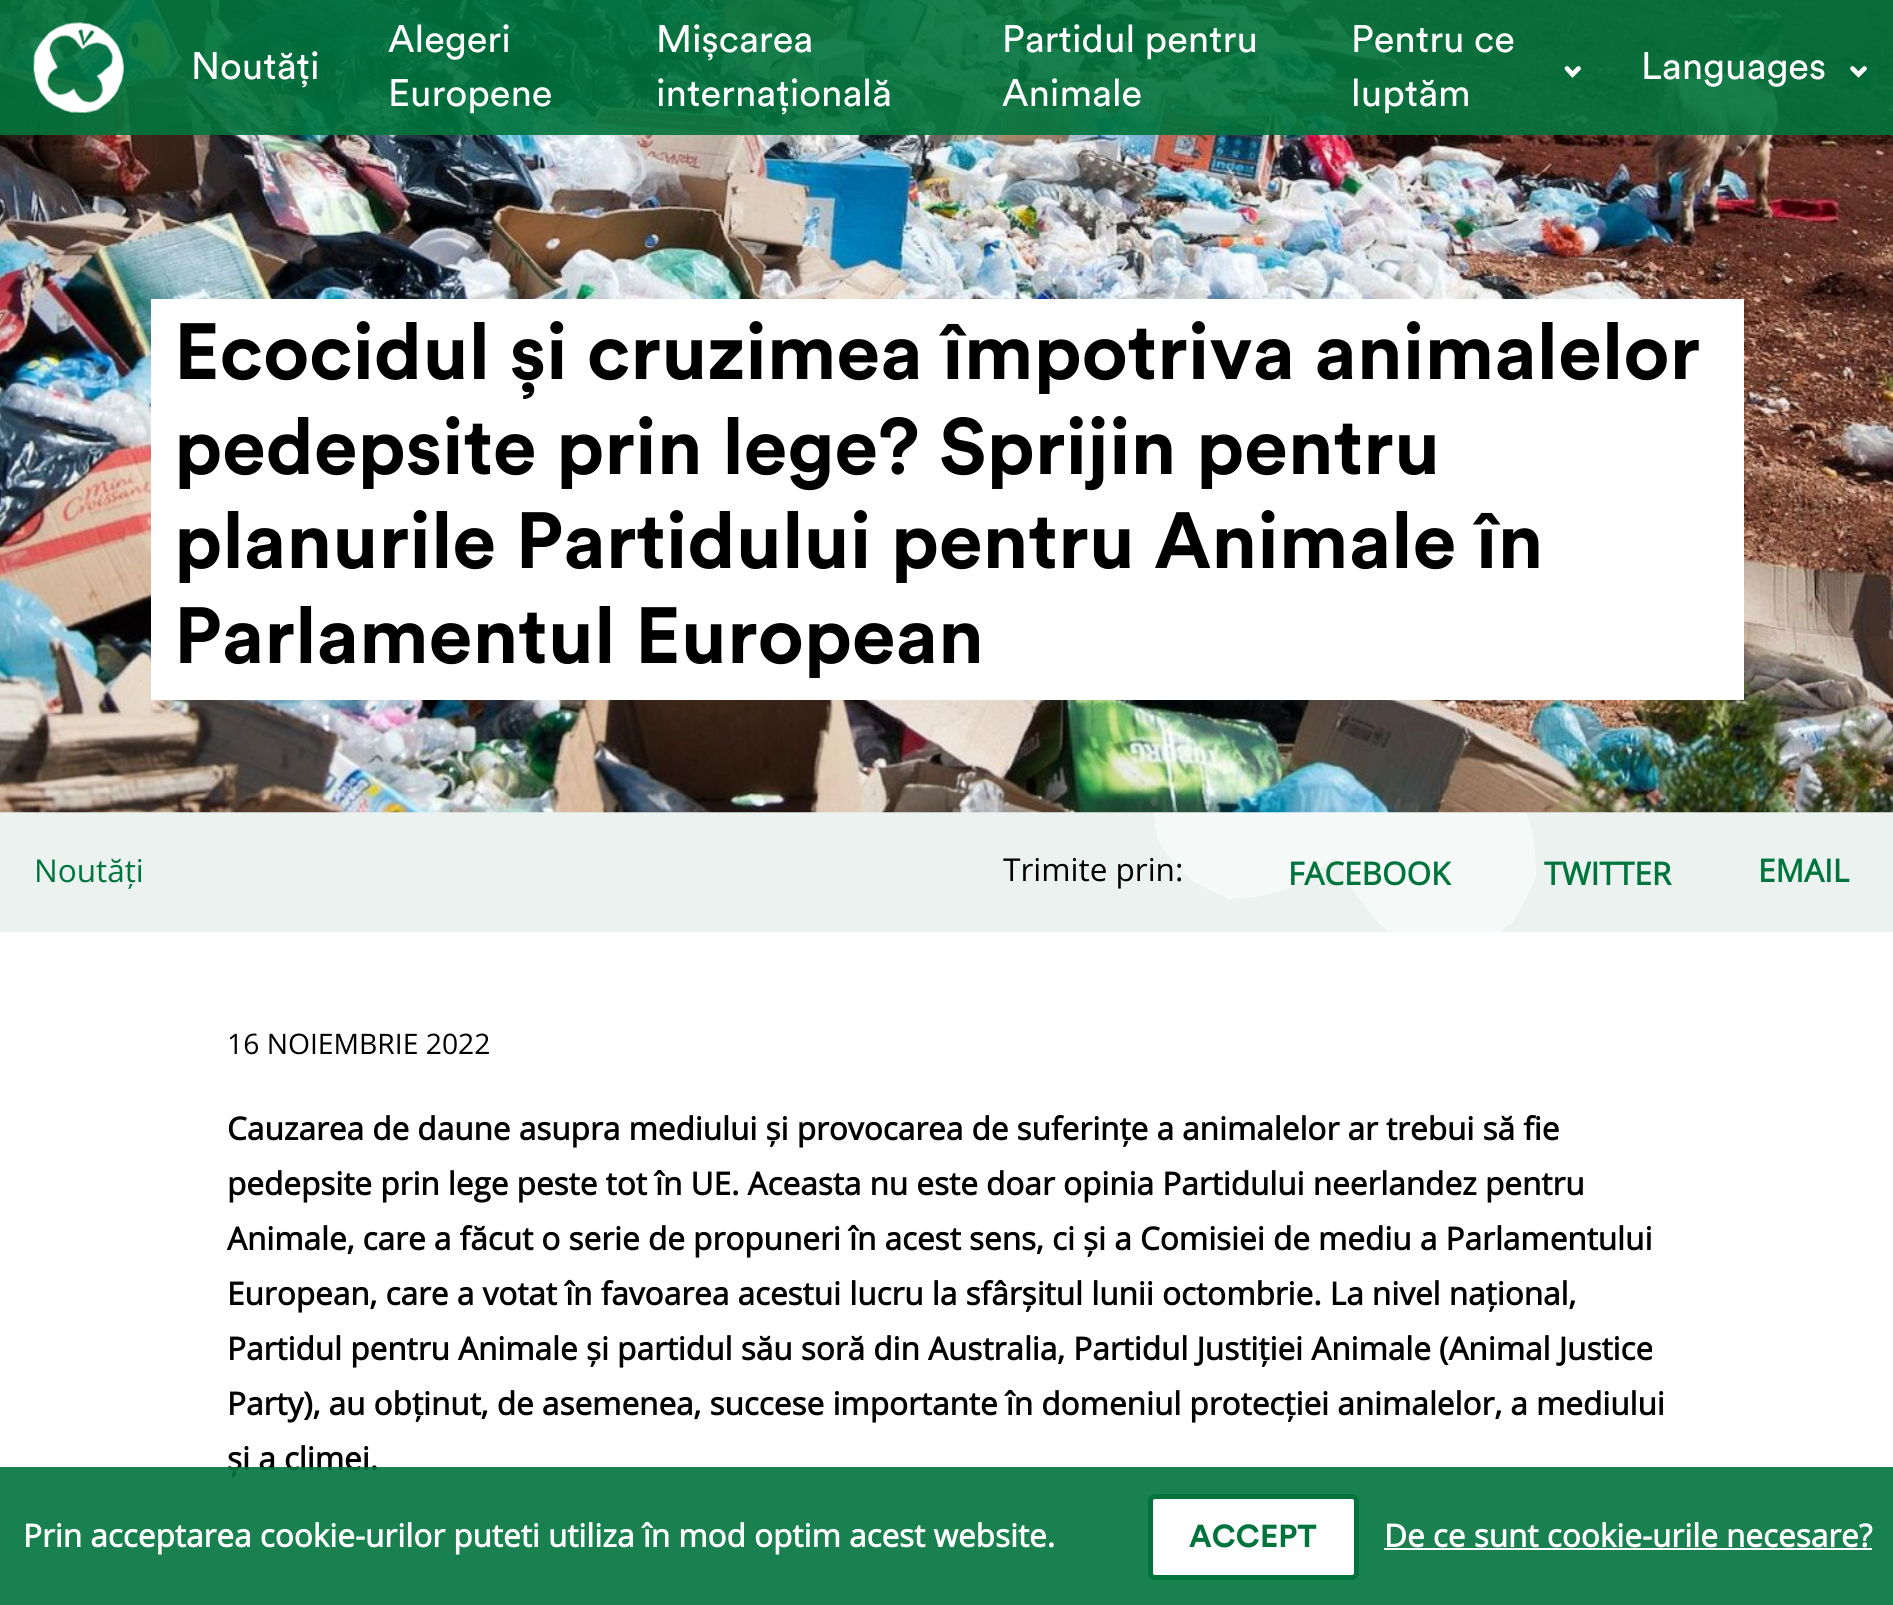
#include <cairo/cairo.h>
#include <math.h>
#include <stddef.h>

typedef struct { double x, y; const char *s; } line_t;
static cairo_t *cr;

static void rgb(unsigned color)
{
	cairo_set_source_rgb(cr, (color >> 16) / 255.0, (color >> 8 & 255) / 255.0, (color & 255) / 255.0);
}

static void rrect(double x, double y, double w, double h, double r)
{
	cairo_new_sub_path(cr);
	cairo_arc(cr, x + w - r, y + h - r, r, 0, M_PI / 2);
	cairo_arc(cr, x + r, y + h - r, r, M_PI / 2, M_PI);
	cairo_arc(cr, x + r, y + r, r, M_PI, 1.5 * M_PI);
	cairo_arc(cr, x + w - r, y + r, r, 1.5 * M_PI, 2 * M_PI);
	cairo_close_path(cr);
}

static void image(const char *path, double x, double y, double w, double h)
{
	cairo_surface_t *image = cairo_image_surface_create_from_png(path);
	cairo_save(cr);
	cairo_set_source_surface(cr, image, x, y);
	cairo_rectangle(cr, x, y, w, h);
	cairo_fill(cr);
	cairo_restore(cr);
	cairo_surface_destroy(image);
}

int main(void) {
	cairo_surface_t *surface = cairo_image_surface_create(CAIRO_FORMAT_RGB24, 1893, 1605);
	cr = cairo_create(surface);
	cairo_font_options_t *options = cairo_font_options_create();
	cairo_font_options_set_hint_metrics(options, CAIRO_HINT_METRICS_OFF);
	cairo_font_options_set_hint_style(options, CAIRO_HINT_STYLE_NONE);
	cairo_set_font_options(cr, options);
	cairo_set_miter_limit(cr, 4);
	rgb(0xebf2ef);
	cairo_paint(cr);
	image("img/1.png", 1153, 812, 384, 120);
	image("img/3.png", 0, 0, 1893, 813);
	cairo_set_source_rgba(cr, 0, 0.455, 0.235, 0.9);
	cairo_rectangle(cr, 0, 0, 1893, 135);
	cairo_fill(cr);
	image("img/2.png", 33, 22, 91, 91);
	cairo_new_path(cr);
	cairo_move_to(cr, 1567, 68.5);
	cairo_line_to(cr, 1572.5, 74.5);
	cairo_line_to(cr, 1578.5, 68.5);
	rgb(0xffffff);
	cairo_set_line_width(cr, 4.7);
	cairo_set_line_cap(cr, CAIRO_LINE_CAP_ROUND);
	cairo_stroke(cr);
	cairo_new_path(cr);
	cairo_move_to(cr, 1852.5, 68.5);
	cairo_line_to(cr, 1858.5, 74.5);
	cairo_line_to(cr, 1864.5, 68.5);
	cairo_stroke(cr);
	cairo_rectangle(cr, 151, 299, 1593, 401);
	cairo_fill(cr);
	cairo_rectangle(cr, 0, 932, 1893, 673);
	cairo_fill(cr);
	cairo_select_font_face(cr, "Circular", CAIRO_FONT_SLANT_NORMAL, CAIRO_FONT_WEIGHT_NORMAL);
	cairo_set_font_size(cr, 38);
	{
		static const line_t items[] = {
			{191, 79, "Noutăți"},
			{388, 52, "Alegeri"},
			{388, 106, "Europene"},
			{656, 52, "Mișcarea"},
			{656, 106, "internațională"},
			{1002, 52, "Partidul pentru"},
			{1002, 106, "Animale"},
			{1351, 52, "Pentru ce"},
			{1351, 106, "luptăm"},
			{1641, 79, "Languages"},
		};
		for (size_t i = 0; i < sizeof items / sizeof *items; i++) {
			cairo_move_to(cr, items[i].x, items[i].y);
			cairo_show_text(cr, items[i].s);
		}
	}
	cairo_select_font_face(cr, "Circular", CAIRO_FONT_SLANT_NORMAL, CAIRO_FONT_WEIGHT_BOLD);
	cairo_set_font_size(cr, 78.75);
	rgb(0x000000);
	{
		static const line_t items[] = {
			{174, 379, "Ecocidul și cruzimea împotriva animalelor"},
			{174, 474, "pedepsite prin lege? Sprijin pentru"},
			{174, 568, "planurile Partidului pentru Animale în"},
			{174, 663, "Parlamentul European"},
		};
		for (size_t i = 0; i < sizeof items / sizeof *items; i++) {
			cairo_move_to(cr, items[i].x, items[i].y);
			cairo_show_text(cr, items[i].s);
		}
	}
	cairo_select_font_face(cr, "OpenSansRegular", CAIRO_FONT_SLANT_NORMAL, CAIRO_FONT_WEIGHT_NORMAL);
	cairo_set_font_size(cr, 31.5);
	rgb(0x00743c);
	cairo_move_to(cr, 34, 882);
	cairo_show_text(cr, "Noutăți");
	rgb(0x000000);
	cairo_move_to(cr, 1003, 881);
	cairo_show_text(cr, "Trimite prin:");
	cairo_select_font_face(cr, "OpenSansRegular", CAIRO_FONT_SLANT_NORMAL, CAIRO_FONT_WEIGHT_BOLD);
	rgb(0x00743c);
	{
		static const line_t items[] = {
			{1288, 885, "FACEBOOK"},
			{1544, 885, "TWITTER"},
			{1758, 882, "EMAIL"},
		};
		for (size_t i = 0; i < sizeof items / sizeof *items; i++) {
			cairo_move_to(cr, items[i].x, items[i].y);
			cairo_show_text(cr, items[i].s);
		}
	}
	cairo_select_font_face(cr, "OpenSansRegular", CAIRO_FONT_SLANT_NORMAL, CAIRO_FONT_WEIGHT_NORMAL);
	cairo_set_font_size(cr, 28.25);
	rgb(0x000000);
	cairo_move_to(cr, 227, 1054);
	cairo_show_text(cr, "16 NOIEMBRIE 2022");
	cairo_select_font_face(cr, "OpenSansRegular", CAIRO_FONT_SLANT_NORMAL, CAIRO_FONT_WEIGHT_BOLD);
	cairo_set_font_size(cr, 31.5);
	{
		static const line_t items[] = {
			{227, 1140, "Cauzarea de daune asupra mediului și provocarea de suferințe a animalelor ar trebui să fie"},
			{227, 1195, "pedepsite prin lege peste tot în UE. Aceasta nu este doar opinia Partidului neerlandez pentru"},
			{227, 1250, "Animale, care a făcut o serie de propuneri în acest sens, ci și a Comisiei de mediu a Parlamentului"},
			{227, 1305, "European, care a votat în favoarea acestui lucru la sfârșitul lunii octombrie. La nivel național,"},
			{227, 1360, "Partidul pentru Animale și partidul său soră din Australia, Partidul Justiției Animale (Animal Justice"},
			{227, 1415, "Party), au obținut, de asemenea, succese importante în domeniul protecției animalelor, a mediului"},
			{227, 1470, "și a climei."},
		};
		for (size_t i = 0; i < sizeof items / sizeof *items; i++) {
			cairo_move_to(cr, items[i].x, items[i].y);
			cairo_show_text(cr, items[i].s);
		}
	}
	cairo_set_source_rgba(cr, 0, 0.455, 0.235, 0.9);
	cairo_rectangle(cr, 0, 1467, 1893, 138);
	cairo_fill(cr);
	rgb(0xffffff);
	cairo_move_to(cr, 23, 1547);
	cairo_show_text(cr, "Prin acceptarea cookie-urilor puteti utiliza în mod optim acest website.");
	rrect(1150.5, 1496.5, 206, 81, 4.5);
	cairo_fill_preserve(cr);
	rgb(0x00743c);
	cairo_set_line_width(cr, 5);
	cairo_set_line_cap(cr, CAIRO_LINE_CAP_BUTT);
	cairo_stroke(cr);
	cairo_select_font_face(cr, "Circular", CAIRO_FONT_SLANT_NORMAL, CAIRO_FONT_WEIGHT_BOLD);
	cairo_move_to(cr, 1189, 1547);
	cairo_show_text(cr, "ACCEPT");
	cairo_select_font_face(cr, "OpenSansRegular", CAIRO_FONT_SLANT_NORMAL, CAIRO_FONT_WEIGHT_BOLD);
	rgb(0xffffff);
	cairo_move_to(cr, 1384, 1547);
	cairo_show_text(cr, "De ce sunt cookie-urile necesare?");
	cairo_rectangle(cr, 1384, 1548, 488, 2);
	cairo_fill(cr);
	cairo_surface_write_to_png(surface, "page.png");
	cairo_font_options_destroy(options);
	cairo_destroy(cr);
	cairo_surface_destroy(surface);
	return 0;
}
